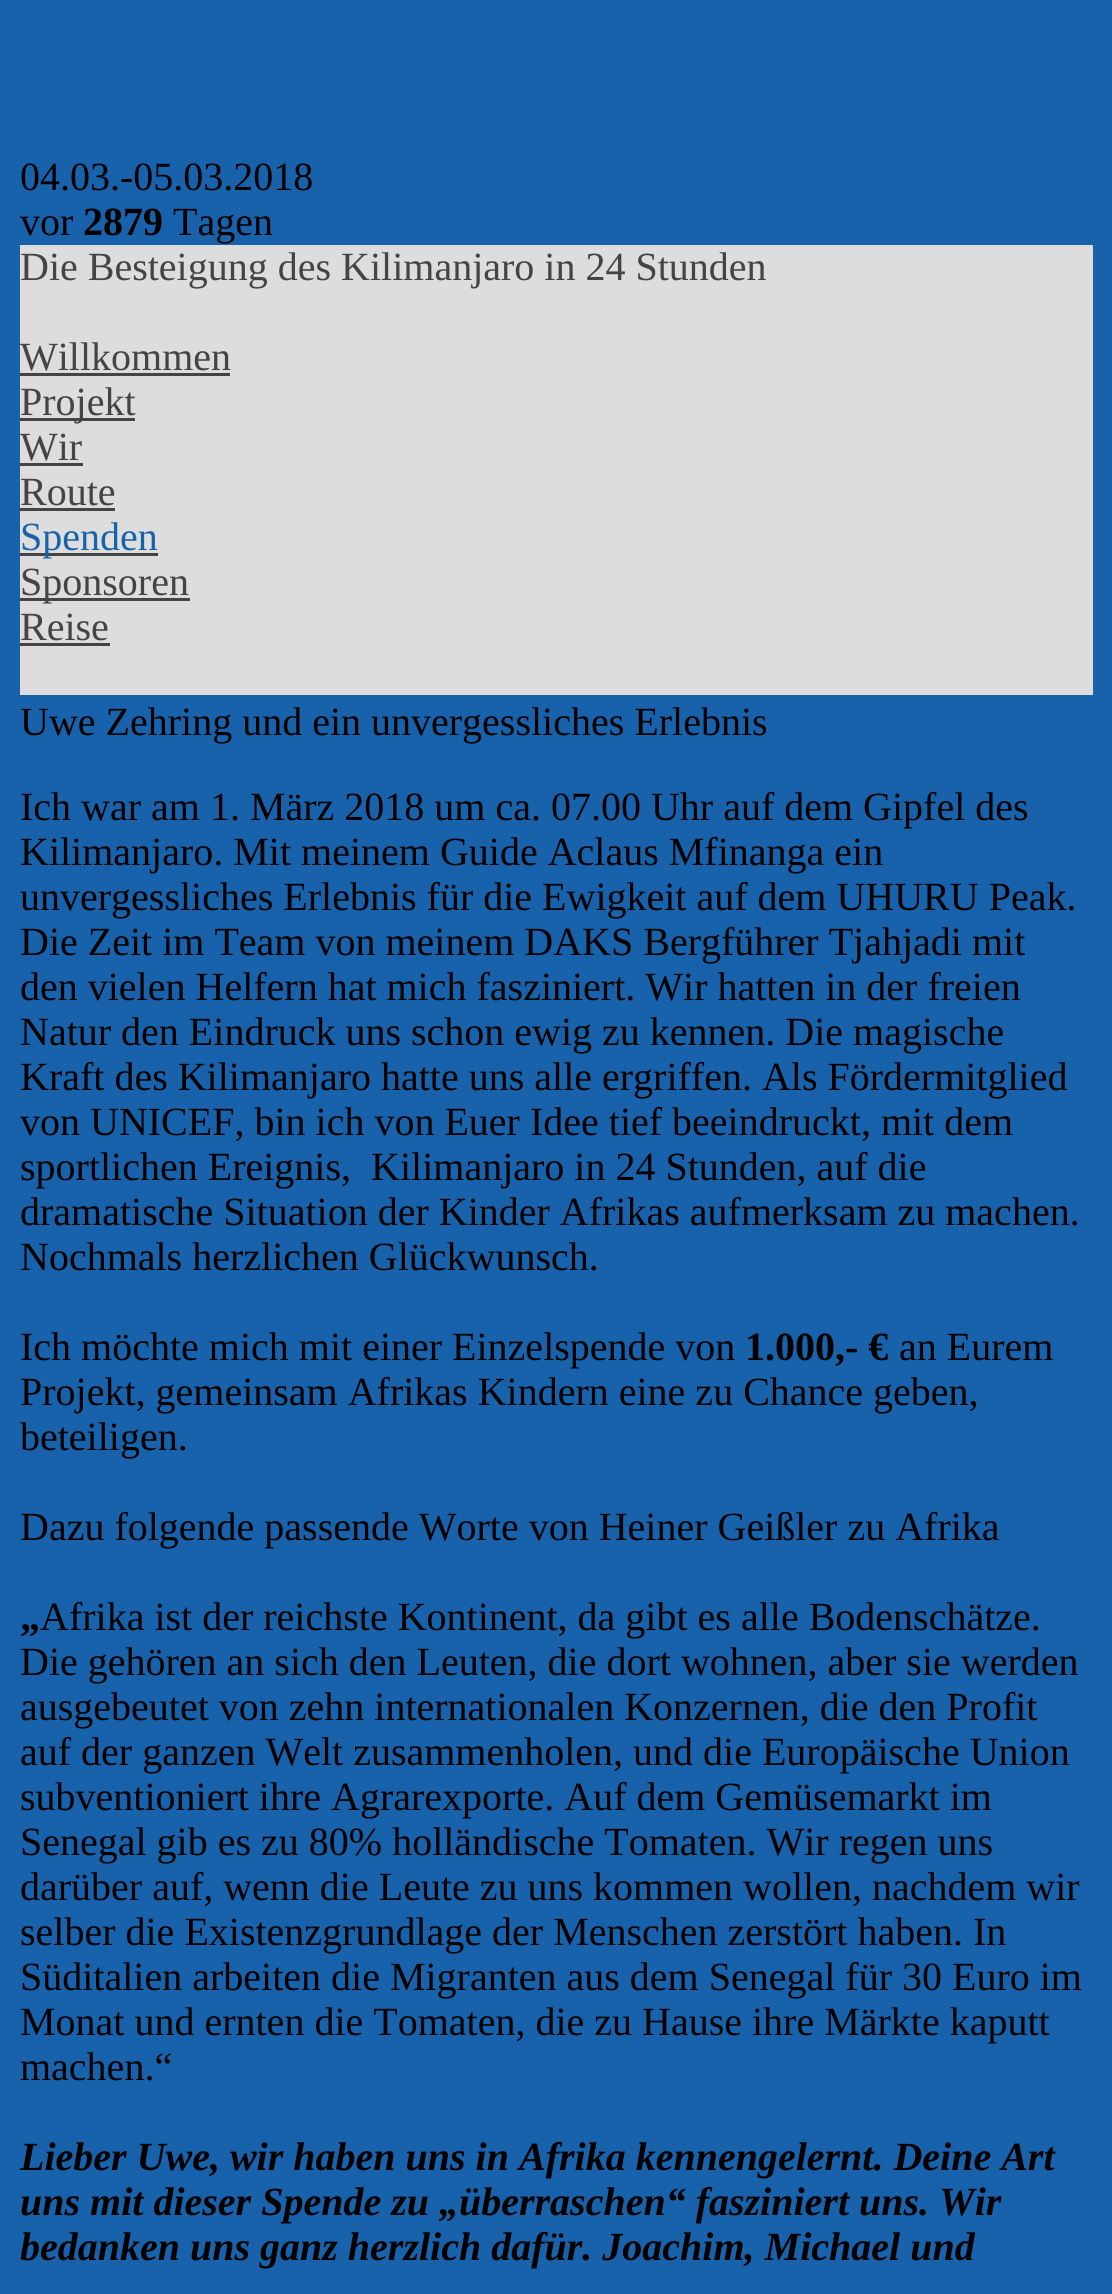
import math
import cairo

surface = cairo.ImageSurface(cairo.Format.RGB24, 1112, 2294)
ctx = cairo.Context(surface)
options = cairo.FontOptions()
options.set_hint_metrics(cairo.HintMetrics.OFF)
options.set_hint_style(cairo.HintStyle.NONE)
ctx.set_font_options(options)
ctx.set_miter_limit(4)


def ink(r, g, b):
    ctx.set_source_rgb(r / 255, g / 255, b / 255)


def write(x, y, s, family, size, color, bold=False, italic=False):
    ctx.select_font_face(family, cairo.FontSlant.ITALIC if italic else cairo.FontSlant.NORMAL, cairo.FontWeight.BOLD if bold else cairo.FontWeight.NORMAL)
    ctx.set_font_size(size)
    ink(*color)
    ctx.move_to(x, y)
    ctx.show_text(s)


def block(x, y, w, h, *color):
    ink(*color)
    ctx.rectangle(x, y, w, h)
    ctx.fill()


s1 = dict(family="Liberation Serif", size=40, color=(0, 0, 0))
s2 = dict(family="Liberation Serif", size=40, color=(0, 0, 0), bold=True)
s3 = dict(family="Liberation Serif", size=40, color=(68, 68, 68))
s4 = dict(family="Liberation Serif", size=40, color=(24, 98, 171))
s5 = dict(family="Liberation Serif", size=40, color=(0, 0, 0), bold=True, italic=True)

ink(24, 98, 171)
ctx.paint()
write(20, 190, "04.03.-05.03.2018", **s1)
write(20, 235, "vor", **s1)
write(83, 235, "2879", **s2)
write(173, 235, "Tagen", **s1)
block(20, 245, 1073, 450, 221, 221, 221)
write(20, 280, "Die Besteigung des Kilimanjaro in 24 Stunden", **s3)
write(20, 370, "Willkommen", **s3)
block(20, 373, 210, 3, 68, 68, 68)
block(20, 418, 115, 3, 68, 68, 68)
write(20, 415, "Projekt", **s3)
write(20, 460, "Wir", **s3)
block(20, 463, 63, 3, 68, 68, 68)
write(20, 505, "Route", **s3)
block(20, 508, 95, 3, 68, 68, 68)
block(20, 553, 138, 3, 68, 68, 68)
write(20, 550, "Spenden", **s4)
block(20, 598, 170, 3, 68, 68, 68)
write(20, 595, "Sponsoren", **s3)
write(20, 640, "Reise", **s3)
block(20, 643, 90, 3, 68, 68, 68)
write(20, 735, "Uwe Zehring und ein unvergessliches Erlebnis", **s1)
write(20, 820, "Ich war am 1. März 2018 um ca. 07.00 Uhr auf dem Gipfel des", **s1)
write(20, 865, "Kilimanjaro. Mit meinem Guide Aclaus Mfinanga ein", **s1)
write(20, 910, "unvergessliches Erlebnis für die Ewigkeit auf dem UHURU Peak.", **s1)
write(20, 955, "Die Zeit im Team von meinem DAKS Bergführer Tjahjadi mit", **s1)
write(20, 1000, "den vielen Helfern hat mich fasziniert. Wir hatten in der freien", **s1)
write(20, 1045, "Natur den Eindruck uns schon ewig zu kennen. Die magische", **s1)
write(20, 1090, "Kraft des Kilimanjaro hatte uns alle ergriffen. Als Fördermitglied", **s1)
write(20, 1135, "von UNICEF, bin ich von Euer Idee tief beeindruckt, mit dem", **s1)
write(20, 1180, "sportlichen Ereignis,  Kilimanjaro in 24 Stunden, auf die", **s1)
write(20, 1225, "dramatische Situation der Kinder Afrikas aufmerksam zu machen.", **s1)
write(20, 1270, "Nochmals herzlichen Glückwunsch.", **s1)
write(20, 1360, "Ich möchte mich mit einer Einzelspende von", **s1)
write(745, 1360, "1.000,- €", **s2)
write(899, 1360, "an Eurem", **s1)
write(20, 1405, "Projekt, gemeinsam Afrikas Kindern eine zu Chance geben,", **s1)
write(20, 1450, "beteiligen.", **s1)
write(20, 1540, "Dazu folgende passende Worte von Heiner Geißler zu Afrika", **s1)
write(20, 1630, "„", **s2)
write(40, 1630, "Afrika ist der reichste Kontinent, da gibt es alle Bodenschätze.", **s1)
write(20, 1675, "Die gehören an sich den Leuten, die dort wohnen, aber sie werden", **s1)
write(20, 1720, "ausgebeutet von zehn internationalen Konzernen, die den Profit", **s1)
write(20, 1765, "auf der ganzen Welt zusammenholen, und die Europäische Union", **s1)
write(20, 1810, "subventioniert ihre Agrarexporte. Auf dem Gemüsemarkt im", **s1)
write(20, 1855, "Senegal gib es zu 80% holländische Tomaten. Wir regen uns", **s1)
write(20, 1900, "darüber auf, wenn die Leute zu uns kommen wollen, nachdem wir", **s1)
write(20, 1945, "selber die Existenzgrundlage der Menschen zerstört haben. In", **s1)
write(20, 1990, "Süditalien arbeiten die Migranten aus dem Senegal für 30 Euro im", **s1)
write(20, 2035, "Monat und ernten die Tomaten, die zu Hause ihre Märkte kaputt", **s1)
write(20, 2080, "machen.“", **s1)
write(20, 2170, "Lieber Uwe, wir haben uns in Afrika kennengelernt. Deine Art", **s5)
write(20, 2215, "uns mit dieser Spende zu „überraschen“ fasziniert uns. Wir", **s5)
write(20, 2260, "bedanken uns ganz herzlich dafür. Joachim, Michael und", **s5)
surface.write_to_png("screenshot.png")
